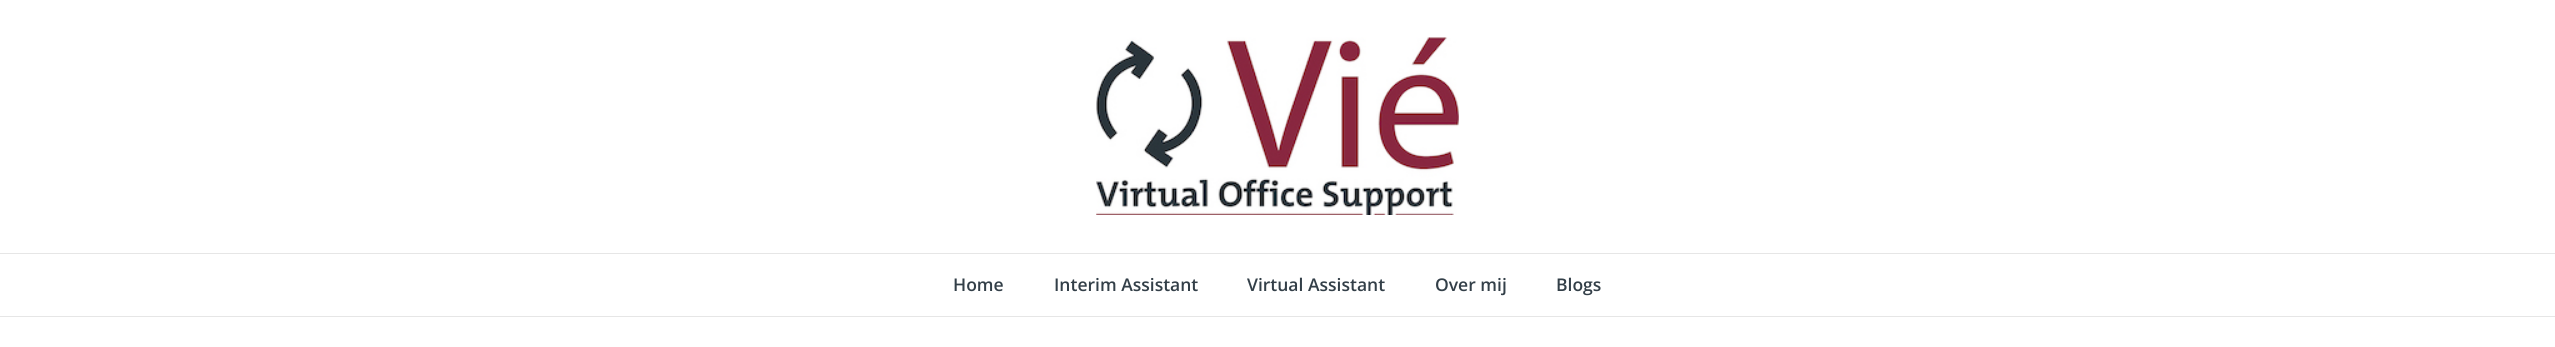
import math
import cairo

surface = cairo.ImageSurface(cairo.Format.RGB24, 2555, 347)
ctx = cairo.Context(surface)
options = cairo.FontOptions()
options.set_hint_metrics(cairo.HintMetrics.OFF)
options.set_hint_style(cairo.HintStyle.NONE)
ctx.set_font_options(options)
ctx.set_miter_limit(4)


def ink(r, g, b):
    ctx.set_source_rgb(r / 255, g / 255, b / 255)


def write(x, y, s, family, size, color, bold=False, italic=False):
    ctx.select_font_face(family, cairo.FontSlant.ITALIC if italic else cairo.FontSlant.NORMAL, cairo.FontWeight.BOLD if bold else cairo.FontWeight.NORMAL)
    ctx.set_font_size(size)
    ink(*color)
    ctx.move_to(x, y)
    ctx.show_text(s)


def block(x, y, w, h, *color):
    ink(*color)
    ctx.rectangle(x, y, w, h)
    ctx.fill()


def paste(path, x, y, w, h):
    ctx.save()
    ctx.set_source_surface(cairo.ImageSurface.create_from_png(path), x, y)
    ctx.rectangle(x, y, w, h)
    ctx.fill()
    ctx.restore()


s1 = dict(family="Open Sans SemiBold", size=17.5, color=(51, 63, 72))

ink(255, 255, 255)
ctx.paint()
paste("pic1.png", 1096, 37, 363, 178)
block(0, 253, 2555, 1, 230, 230, 230)
block(0, 316, 2555, 1, 230, 230, 230)
write(953, 291, "Home", **s1)
write(1054, 291, "Interim Assistant", **s1)
write(1247, 291, "Virtual Assistant", **s1)
write(1435, 291, "Over mij", **s1)
write(1556, 291, "Blogs", **s1)
surface.write_to_png("screenshot.png")
